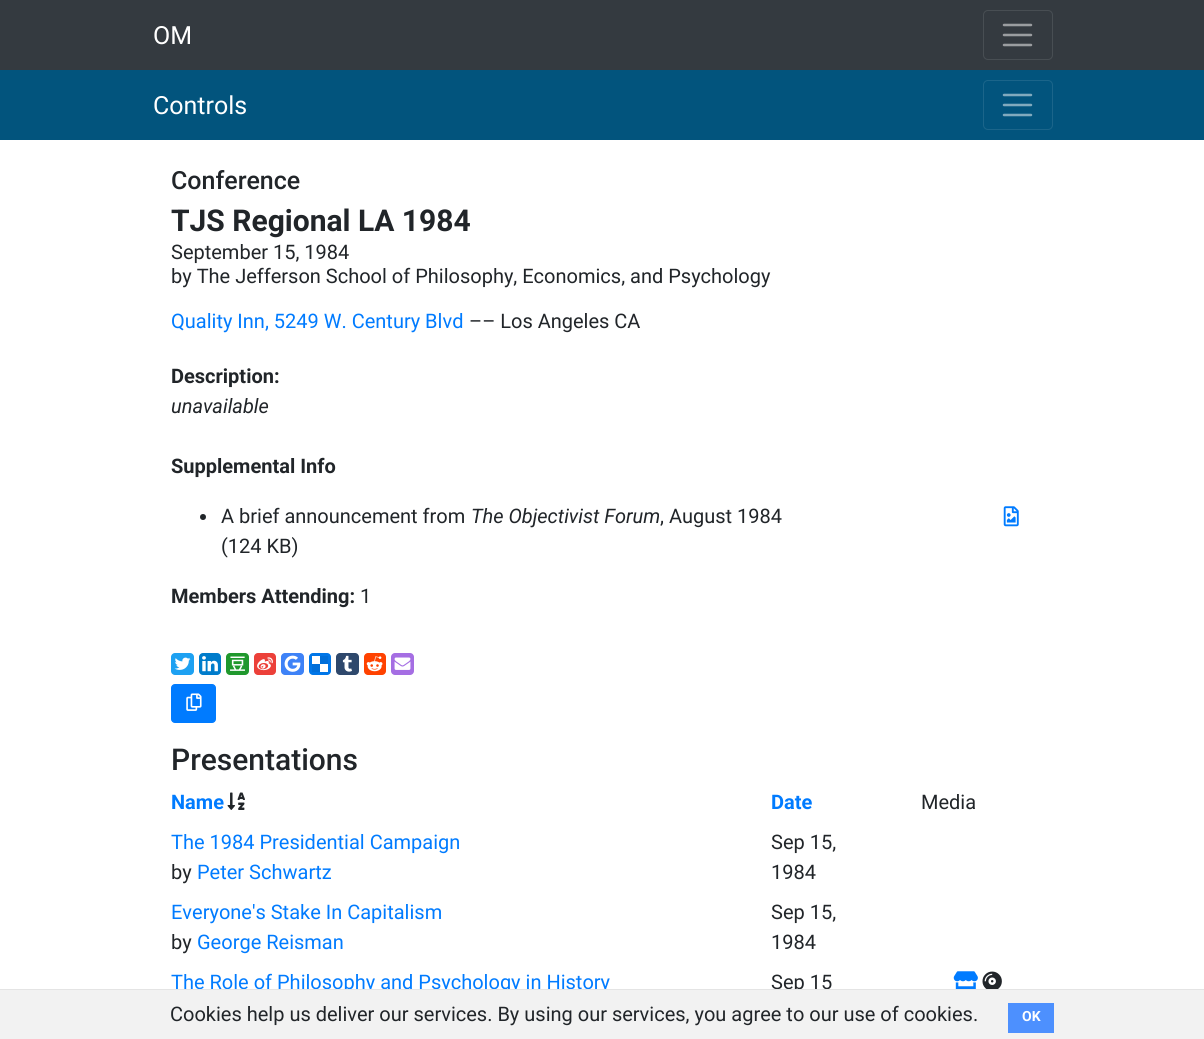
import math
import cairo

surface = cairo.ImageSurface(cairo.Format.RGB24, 1204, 1039)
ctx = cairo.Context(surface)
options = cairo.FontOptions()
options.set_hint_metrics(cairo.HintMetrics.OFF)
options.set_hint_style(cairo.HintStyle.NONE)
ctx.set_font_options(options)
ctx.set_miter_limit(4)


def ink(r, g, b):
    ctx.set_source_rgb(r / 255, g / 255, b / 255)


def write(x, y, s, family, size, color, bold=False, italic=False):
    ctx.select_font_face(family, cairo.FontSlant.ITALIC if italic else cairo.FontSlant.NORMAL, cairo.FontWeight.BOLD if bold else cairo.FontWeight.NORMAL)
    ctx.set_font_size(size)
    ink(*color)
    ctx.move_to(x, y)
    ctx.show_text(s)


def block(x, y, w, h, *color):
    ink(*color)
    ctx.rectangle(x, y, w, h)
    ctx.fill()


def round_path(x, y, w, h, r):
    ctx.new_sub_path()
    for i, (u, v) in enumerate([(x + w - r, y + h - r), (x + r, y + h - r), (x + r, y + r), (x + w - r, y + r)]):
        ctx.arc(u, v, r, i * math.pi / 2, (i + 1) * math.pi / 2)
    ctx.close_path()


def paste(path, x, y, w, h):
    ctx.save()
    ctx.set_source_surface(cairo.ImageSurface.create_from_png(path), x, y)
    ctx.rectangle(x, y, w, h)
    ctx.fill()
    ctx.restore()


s1 = dict(family="Roboto", size=25, color=(255, 255, 255))
s2 = dict(family="Roboto Medium", size=25, color=(33, 37, 41))
s3 = dict(family="Roboto", size=30, color=(33, 37, 41), bold=True)
s4 = dict(family="Roboto", size=20, color=(33, 37, 41))
s5 = dict(family="Roboto", size=20, color=(0, 123, 255))
s6 = dict(family="Roboto", size=20, color=(33, 37, 41), bold=True)
s7 = dict(family="Roboto", size=20, color=(33, 37, 41), italic=True)
s8 = dict(family="Roboto Medium", size=30, color=(33, 37, 41))
s9 = dict(family="Roboto", size=20, color=(0, 123, 255), bold=True)
s10 = dict(family="Roboto", size=14, color=(255, 255, 255), bold=True)

ink(255, 255, 255)
ctx.paint()
block(0, 0, 1204, 70, 52, 58, 64)
write(153, 44, "OM", **s1)
round_path(983.5, 10.5, 69, 49, 4.5)
ink(72, 78, 83)
ctx.set_line_width(1)
ctx.stroke()
ctx.new_path()
ctx.move_to(1004, 25)
ctx.line_to(1031, 25)
ctx.move_to(1004, 35)
ctx.line_to(1031, 35)
ctx.move_to(1004, 45)
ctx.line_to(1031, 45)
ink(154, 157, 160)
ctx.set_line_width(2.5)
ctx.set_line_cap(cairo.LineCap.ROUND)
ctx.stroke()
block(0, 70, 1204, 70, 2, 84, 125)
write(153, 114, "Controls", **s1)
round_path(983.5, 80.5, 69, 49, 4.5)
ink(27, 101, 138)
ctx.set_line_width(1)
ctx.set_line_cap(cairo.LineCap.BUTT)
ctx.stroke()
ctx.new_path()
ctx.move_to(1004, 95)
ctx.line_to(1031, 95)
ctx.move_to(1004, 105)
ctx.line_to(1031, 105)
ctx.move_to(1004, 115)
ctx.line_to(1031, 115)
ink(129, 170, 190)
ctx.set_line_width(2.5)
ctx.set_line_cap(cairo.LineCap.ROUND)
ctx.stroke()
write(171, 189, "Conference", **s2)
write(171, 231, "TJS Regional LA 1984", **s3)
write(171, 259, "September 15, 1984", **s4)
write(171, 283, "by The Jefferson School of Philosophy, Economics, and Psychology", **s4)
write(171, 328, "Quality Inn, 5249 W. Century Blvd", **s5)
write(469, 328, "–– Los Angeles CA", **s4)
write(171, 383, "Description:", **s6)
write(171, 413, "unavailable", **s7)
write(171, 473, "Supplemental Info", **s6)
ctx.new_path()
ctx.arc(203, 517, 3, 0, 2 * math.pi)
ctx.fill()
write(221, 523, "A brief announcement from", **s4)
write(471, 523, "The Objectivist Forum", **s7)
write(660, 523, ", August 1984", **s4)
write(221, 553, "(124 KB)", **s4)
paste("pic1.png", 1003, 506, 16, 21)
write(171, 603, "Members Attending:", **s6)
write(360, 603, "1", **s4)
paste("pic2.png", 171, 653, 23, 22)
paste("pic3.png", 199, 653, 22, 22)
paste("pic4.png", 226, 653, 23, 22)
paste("pic5.png", 254, 653, 22, 22)
paste("pic6.png", 281, 653, 23, 22)
paste("pic7.png", 309, 653, 22, 22)
paste("pic8.png", 336, 653, 23, 22)
paste("pic9.png", 364, 653, 22, 22)
paste("pic10.png", 391, 653, 23, 22)
ink(0, 123, 255)
round_path(171.5, 684.5, 44, 38, 3.5)
ctx.fill_preserve()
ctx.set_line_width(1)
ctx.set_line_cap(cairo.LineCap.BUTT)
ctx.stroke()
paste("pic11.png", 186, 693, 16, 18)
write(171, 770, "Presentations", **s8)
write(171, 809, "Name", **s9)
paste("pic12.png", 227, 792, 18, 18)
write(771, 809, "Date", **s9)
write(921, 809, "Media", **s4)
write(171, 849, "The 1984 Presidential Campaign", **s5)
write(171, 879, "by", **s4)
write(197, 879, "Peter Schwartz", **s5)
write(771, 849, "Sep 15,", **s4)
write(771, 879, "1984", **s4)
write(171, 919, "Everyone's Stake In Capitalism", **s5)
write(171, 949, "by", **s4)
write(197, 949, "George Reisman", **s5)
write(771, 919, "Sep 15,", **s4)
write(771, 949, "1984", **s4)
write(171, 989, "The Role of Philosophy and Psychology in History", **s5)
write(771, 989, "Sep 15", **s4)
paste("pic13.png", 953, 971, 25, 18)
paste("pic14.png", 982, 971, 20, 18)
block(0, 990, 1204, 49, 242, 242, 242)
block(0, 989, 1204, 1, 228, 228, 228)
write(170, 1021, "Cookies help us deliver our services. By using our services, you agree to our use of cookies.", **s4)
block(1008, 1003, 46, 30, 77, 144, 254)
write(1022, 1021, "OK", **s10)
surface.write_to_png("screenshot.png")
